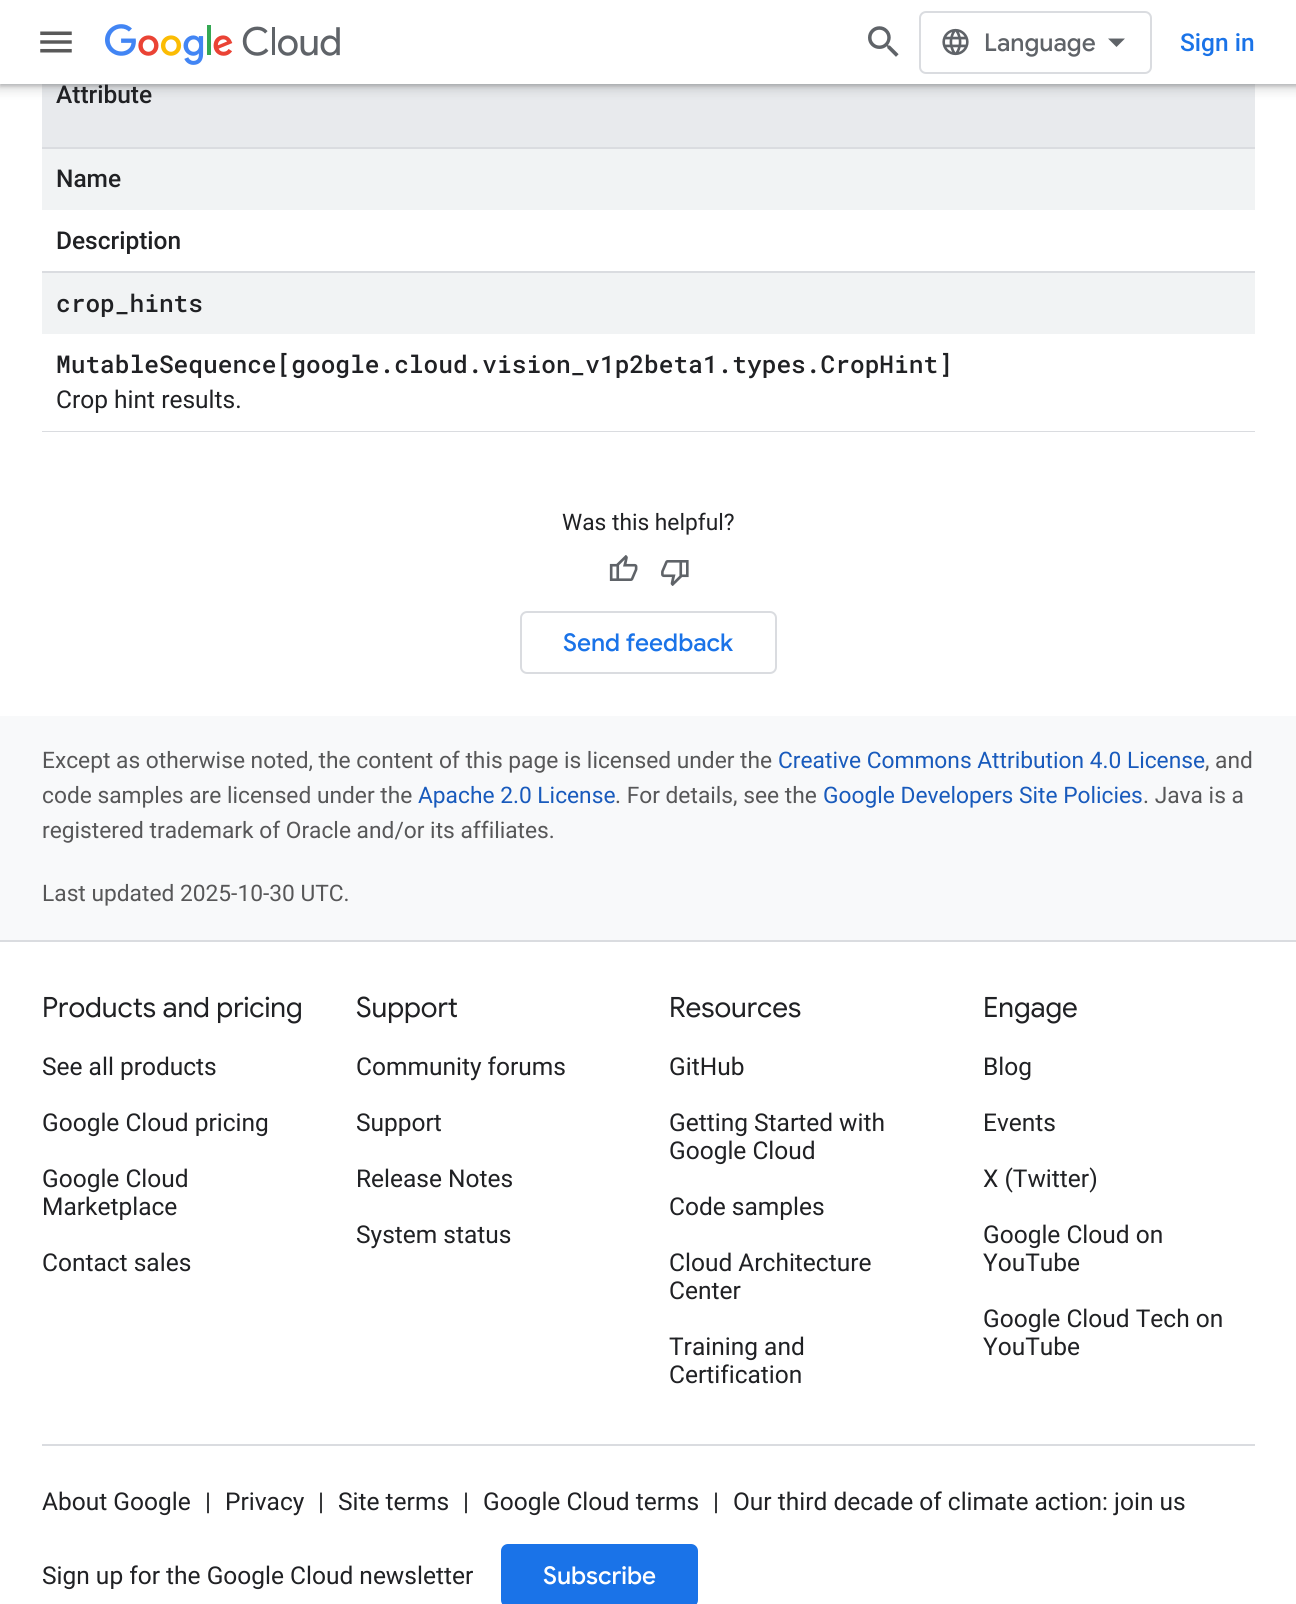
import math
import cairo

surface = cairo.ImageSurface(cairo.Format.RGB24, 1296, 1604)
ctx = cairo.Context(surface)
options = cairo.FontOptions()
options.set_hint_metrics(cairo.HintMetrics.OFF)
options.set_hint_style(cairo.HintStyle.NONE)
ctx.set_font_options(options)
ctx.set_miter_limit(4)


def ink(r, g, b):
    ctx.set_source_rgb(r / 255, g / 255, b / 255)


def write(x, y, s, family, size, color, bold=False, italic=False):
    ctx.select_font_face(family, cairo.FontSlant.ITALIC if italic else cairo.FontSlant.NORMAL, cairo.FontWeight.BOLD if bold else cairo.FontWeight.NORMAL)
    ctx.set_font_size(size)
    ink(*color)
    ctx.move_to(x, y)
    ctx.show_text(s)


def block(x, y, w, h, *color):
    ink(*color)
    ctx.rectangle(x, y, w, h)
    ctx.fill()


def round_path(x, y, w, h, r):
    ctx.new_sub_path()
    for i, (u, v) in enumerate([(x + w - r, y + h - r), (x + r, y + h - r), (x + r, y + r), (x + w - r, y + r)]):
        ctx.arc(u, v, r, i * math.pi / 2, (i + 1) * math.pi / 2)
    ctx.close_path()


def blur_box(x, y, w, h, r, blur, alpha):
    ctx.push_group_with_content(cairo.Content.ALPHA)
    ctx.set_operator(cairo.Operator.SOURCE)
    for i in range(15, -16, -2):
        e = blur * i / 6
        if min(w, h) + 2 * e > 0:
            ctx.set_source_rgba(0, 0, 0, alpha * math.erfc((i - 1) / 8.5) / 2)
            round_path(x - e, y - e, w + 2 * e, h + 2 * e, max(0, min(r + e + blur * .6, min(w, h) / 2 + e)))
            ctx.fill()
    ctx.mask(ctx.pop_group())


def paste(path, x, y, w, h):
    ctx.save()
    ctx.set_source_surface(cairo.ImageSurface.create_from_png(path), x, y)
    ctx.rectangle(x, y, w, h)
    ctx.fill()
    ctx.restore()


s1 = dict(family="Google Sans Medium", size=24.5, color=(95, 99, 104))
s2 = dict(family="Roboto Medium", size=24.5, color=(26, 115, 232))
s3 = dict(family="Roboto Medium", size=24.5, color=(32, 33, 36))
s4 = dict(family="Roboto Mono Medium", size=24.5, color=(32, 33, 36))
s5 = dict(family="Roboto", size=24.5, color=(32, 33, 36))
s6 = dict(family="Roboto", size=22.75, color=(32, 33, 36))
s7 = dict(family="Google Sans Medium", size=24.5, color=(26, 115, 232))
s8 = dict(family="Roboto", size=22.75, color=(87, 87, 88))
s9 = dict(family="Roboto", size=22.75, color=(24, 90, 188))
s10 = dict(family="Google Sans", size=28, color=(32, 33, 36))
s11 = dict(family="Google Sans Medium", size=24.5, color=(255, 255, 255))

ink(248, 249, 250)
ctx.paint()
block(0, 84, 1296, 632, 255, 255, 255)
block(42, 84, 1213, 63, 232, 234, 237)
ink(60, 64, 67)
blur_box(-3, -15, 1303, 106, 0, 5, 0.15)
blur_box(0, -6, 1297, 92, 0, 2, 0.3)
block(0, 0, 1296, 84, 255, 255, 255)
paste("pic1.png", 40, 31, 32, 22)
paste("pic2.png", 105, 24, 235, 41)
paste("pic3.png", 868, 26, 31, 31)
round_path(920, 12, 231, 61, 6)
ink(218, 220, 224)
ctx.stroke()
paste("pic4.png", 942, 28, 27, 28)
write(984, 51, "Language", **s1)
ctx.new_path()
ctx.move_to(1116.5, 47)
ctx.line_to(1108, 38.5)
ctx.line_to(1125, 38.5)
ctx.close_path()
ctx.fill()
write(1180, 51, "Sign in", **s2)
block(42, 147, 1213, 2, 218, 220, 224)
write(56, 103, "Attribute", **s3)
block(42, 271, 1213, 2, 218, 220, 224)
block(42, 149, 1213, 61, 241, 243, 244)
write(56, 187, "Name", **s3)
write(56, 249, "Description", **s3)
block(42, 431, 1213, 1, 218, 220, 224)
block(42, 273, 1213, 61, 241, 243, 244)
write(56, 312, "crop_hints", **s4)
write(56, 373, "MutableSequence[google.cloud.vision_v1p2beta1.types.CropHint]", **s4)
write(56, 408, "Crop hint results.", **s5)
write(562, 530, "Was this helpful?", **s6)
paste("pic5.png", 609, 555, 29, 26)
paste("pic6.png", 661, 560, 28, 26)
round_path(521, 612, 255, 61, 6)
ink(218, 220, 224)
ctx.stroke()
write(563, 651, "Send feedback", **s7)
write(42, 768, "Except as otherwise noted, the content of this page is licensed under the", **s8)
write(778, 768, "Creative Commons Attribution 4.0 License", **s9)
write(1205, 768, ", and", **s8)
write(42, 803, "code samples are licensed under the", **s8)
write(418, 803, "Apache 2.0 License", **s9)
write(615, 803, ". For details, see the", **s8)
write(823, 803, "Google Developers Site Policies", **s9)
write(1143, 803, ". Java is a", **s8)
write(42, 838, "registered trademark of Oracle and/or its affiliates.", **s8)
write(42, 901, "Last updated 2025-10-30 UTC.", **s8)
block(0, 940, 1296, 2, 218, 220, 224)
block(0, 942, 1296, 662, 255, 255, 255)
block(42, 1444, 1213, 2, 218, 220, 224)
write(42, 1017, "Products and pricing", **s10)
write(42, 1075, "See all products", **s5)
write(42, 1131, "Google Cloud pricing", **s5)
write(42, 1187, "Google Cloud", **s5)
write(42, 1215, "Marketplace", **s5)
write(42, 1271, "Contact sales", **s5)
write(356, 1017, "Support", **s10)
write(356, 1075, "Community forums", **s5)
write(356, 1131, "Support", **s5)
write(356, 1187, "Release Notes", **s5)
write(356, 1243, "System status", **s5)
write(669, 1017, "Resources", **s10)
write(669, 1075, "GitHub", **s5)
write(669, 1131, "Getting Started with", **s5)
write(669, 1159, "Google Cloud", **s5)
write(669, 1215, "Code samples", **s5)
write(669, 1271, "Cloud Architecture", **s5)
write(669, 1299, "Center", **s5)
write(669, 1355, "Training and", **s5)
write(669, 1383, "Certification", **s5)
write(983, 1017, "Engage", **s10)
write(983, 1075, "Blog", **s5)
write(983, 1131, "Events", **s5)
write(983, 1187, "X (Twitter)", **s5)
write(983, 1243, "Google Cloud on", **s5)
write(983, 1271, "YouTube", **s5)
write(983, 1327, "Google Cloud Tech on", **s5)
write(983, 1355, "YouTube", **s5)
write(42, 1510, "About Google", **s5)
write(205, 1510, "|", **s5)
write(225, 1510, "Privacy", **s5)
write(318, 1510, "|", **s5)
write(338, 1510, "Site terms", **s5)
write(463, 1510, "|", **s5)
write(483, 1510, "Google Cloud terms", **s5)
write(713, 1510, "|", **s5)
write(733, 1510, "Our third decade of climate action: join us", **s5)
write(42, 1584, "Sign up for the Google Cloud newsletter", **s5)
ink(26, 115, 232)
round_path(501, 1544, 197, 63, 7)
ctx.fill()
write(543, 1584, "Subscribe", **s11)
surface.write_to_png("screenshot.png")
